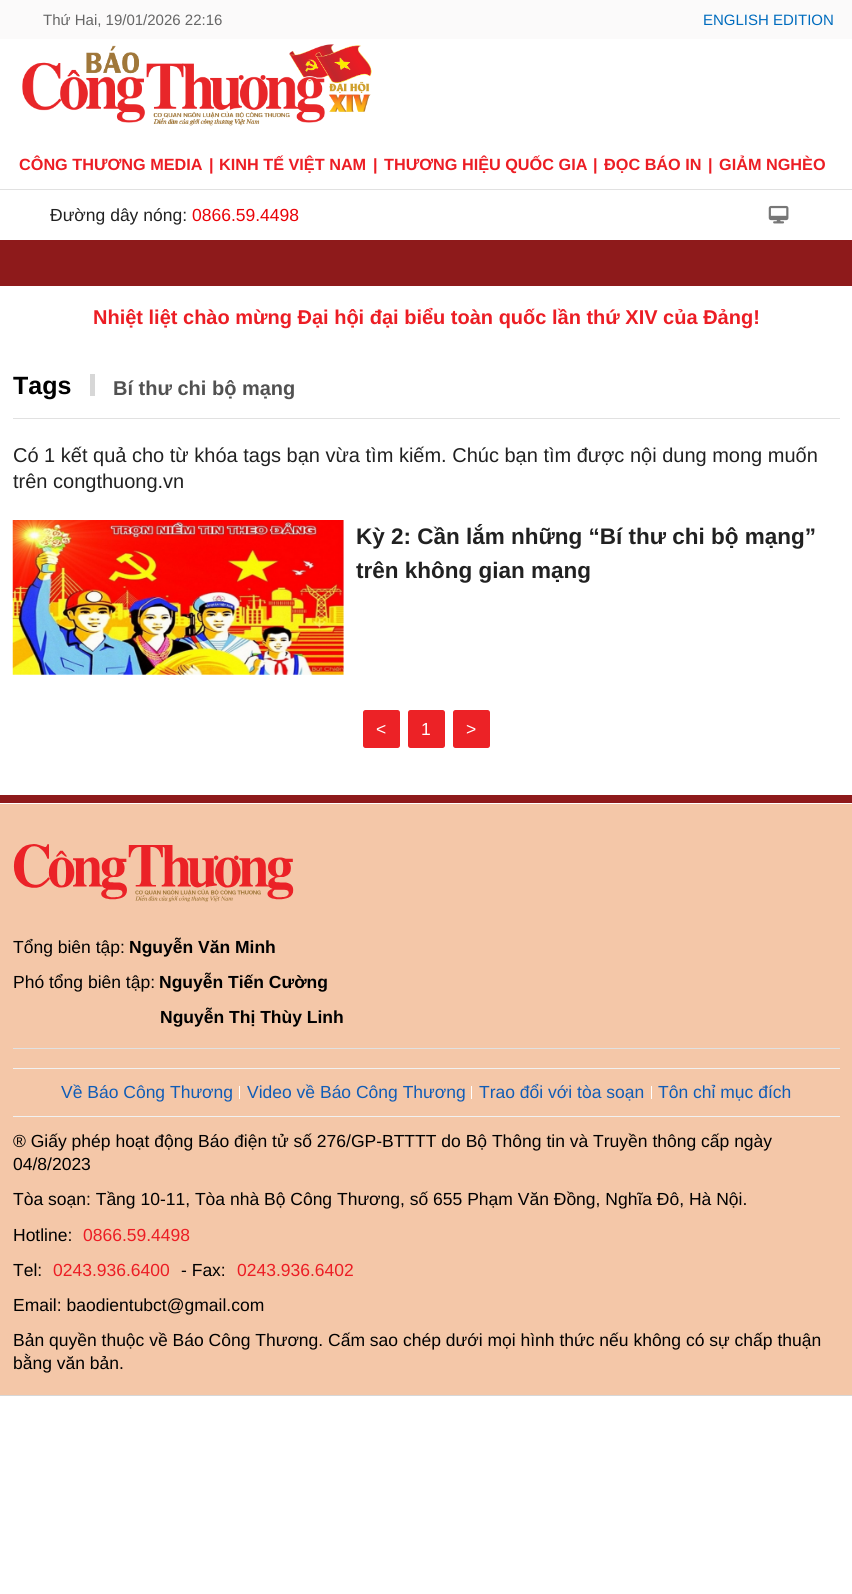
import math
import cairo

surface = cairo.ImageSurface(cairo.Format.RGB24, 852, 1594)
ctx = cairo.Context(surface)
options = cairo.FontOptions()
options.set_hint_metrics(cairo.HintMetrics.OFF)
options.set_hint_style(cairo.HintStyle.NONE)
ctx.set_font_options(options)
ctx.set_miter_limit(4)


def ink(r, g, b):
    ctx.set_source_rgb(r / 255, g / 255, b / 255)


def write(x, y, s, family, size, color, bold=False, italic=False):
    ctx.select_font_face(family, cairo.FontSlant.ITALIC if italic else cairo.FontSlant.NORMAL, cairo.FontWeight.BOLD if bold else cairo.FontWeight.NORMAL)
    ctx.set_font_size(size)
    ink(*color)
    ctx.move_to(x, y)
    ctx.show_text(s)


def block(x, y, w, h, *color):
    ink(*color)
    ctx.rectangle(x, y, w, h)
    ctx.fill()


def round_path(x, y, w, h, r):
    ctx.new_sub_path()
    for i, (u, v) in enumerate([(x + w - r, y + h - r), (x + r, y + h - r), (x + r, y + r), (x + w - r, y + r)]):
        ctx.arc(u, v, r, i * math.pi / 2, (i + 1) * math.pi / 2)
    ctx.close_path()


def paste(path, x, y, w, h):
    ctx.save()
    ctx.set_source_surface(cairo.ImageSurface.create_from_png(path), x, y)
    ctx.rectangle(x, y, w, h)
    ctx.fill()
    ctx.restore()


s1 = dict(family="Liberation Sans", size=15, color=(102, 102, 102))
s2 = dict(family="Liberation Sans", size=15, color=(0, 108, 190))
s3 = dict(family="Liberation Sans", size=16.25, color=(236, 29, 36), bold=True)
s4 = dict(family="Liberation Sans", size=17.5, color=(33, 33, 33))
s5 = dict(family="Liberation Sans", size=17.5, color=(233, 2, 7))
s6 = dict(family="Liberation Sans", size=20, color=(236, 29, 36), bold=True)
s7 = dict(family="Liberation Sans", size=25, color=(0, 0, 0), bold=True)
s8 = dict(family="Liberation Sans", size=20, color=(81, 81, 81), bold=True)
s9 = dict(family="Liberation Sans", size=20, color=(33, 33, 33))
s10 = dict(family="Liberation Sans", size=22.5, color=(33, 33, 33), bold=True)
s11 = dict(family="Liberation Sans", size=17.5, color=(255, 255, 255))
s12 = dict(family="Liberation Sans", size=17.5, color=(0, 0, 0))
s13 = dict(family="Liberation Sans", size=17.5, color=(0, 0, 0), bold=True)
s14 = dict(family="Liberation Sans", size=17.5, color=(16, 92, 182))
s15 = dict(family="Liberation Sans", size=17.5, color=(236, 29, 36))

ink(255, 255, 255)
ctx.paint()
block(0, 0, 852, 39, 251, 250, 250)
write(43, 25, "Thứ Hai, 19/01/2026 22:16", **s1)
write(703, 25, "ENGLISH EDITION", **s2)
paste("pic1.png", 22, 44, 350, 82)
write(19, 170, "CÔNG THƯƠNG MEDIA", **s3)
write(209, 170, "|", **s3)
write(219, 170, "KINH TẾ VIỆT NAM", **s3)
write(373, 170, "|", **s3)
write(384, 170, "THƯƠNG HIỆU QUỐC GIA", **s3)
write(593, 170, "|", **s3)
write(604, 170, "ĐỌC BÁO IN", **s3)
write(708, 170, "|", **s3)
write(719, 170, "GIẢM NGHÈO", **s3)
block(0, 189, 852, 1, 225, 225, 225)
write(50, 221, "Đường dây nóng:", **s4)
write(192, 221, "0866.59.4498", **s5)
paste("pic2.png", 768, 205, 21, 19)
block(0, 240, 852, 46, 142, 26, 27)
write(93, 324, "Nhiệt liệt chào mừng Đại hội đại biểu toàn quốc lần thứ XIV của Đảng!", **s6)
block(13, 418, 827, 1, 225, 225, 225)
ctx.save()
ctx.rectangle(13, 369, 827, 35)
ctx.clip()
write(13, 394, "Tags", **s7)
ctx.restore()
block(90, 374, 5, 22, 215, 215, 215)
write(113, 395, "Bí thư chi bộ mạng", **s8)
write(13, 462, "Có 1 kết quả cho từ khóa tags bạn vừa tìm kiếm. Chúc bạn tìm được nội dung mong muốn", **s9)
write(13, 488, "trên congthuong.vn", **s9)
paste("pic3.png", 12, 520, 332, 155)
write(356, 544, "Kỳ 2: Cần lắm những “Bí thư chi bộ mạng”", **s10)
write(356, 578, "trên không gian mạng", **s10)
ink(236, 34, 38)
round_path(363, 710, 37, 38, 2.5)
ctx.fill()
write(376, 735, "<", **s11)
ink(236, 34, 38)
round_path(408, 710, 37, 38, 2.5)
ctx.fill()
write(421, 735, "1", **s11)
ink(236, 34, 38)
round_path(453, 710, 37, 38, 2.5)
ctx.fill()
write(466, 735, ">", **s11)
block(0, 804, 852, 591, 244, 199, 168)
block(0, 795, 852, 8, 142, 26, 27)
block(0, 1395, 852, 1, 215, 215, 215)
paste("pic4.png", 13, 844, 281, 58)
write(13, 953, "Tổng biên tập:", **s12)
write(129, 953, "Nguyễn Văn Minh", **s13)
write(13, 988, "Phó tổng biên tập:", **s12)
write(159, 988, "Nguyễn Tiến Cường", **s13)
write(160, 1023, "Nguyễn Thị Thùy Linh", **s13)
block(13, 1048, 827, 1, 225, 225, 225)
block(13, 1068, 827, 1, 241, 241, 241)
block(13, 1116, 827, 1, 241, 241, 241)
write(61, 1098, "Về Báo Công Thương", **s14)
block(239, 1086, 1, 13, 255, 255, 255)
write(247, 1098, "Video về Báo Công Thương", **s14)
block(471, 1086, 1, 13, 255, 255, 255)
write(479, 1098, "Trao đổi với tòa soạn", **s14)
block(651, 1086, 1, 13, 255, 255, 255)
write(658, 1098, "Tôn chỉ mục đích", **s14)
write(13, 1147, "® Giấy phép hoạt động Báo điện tử số 276/GP-BTTTT do Bộ Thông tin và Truyền thông cấp ngày", **s12)
write(13, 1170, "04/8/2023", **s12)
write(13, 1205, "Tòa soạn: Tầng 10-11, Tòa nhà Bộ Công Thương, số 655 Phạm Văn Đồng, Nghĩa Đô, Hà Nội.", **s12)
write(13, 1241, "Hotline:", **s12)
write(83, 1241, "0866.59.4498", **s15)
write(13, 1276, "Tel:", **s12)
write(53, 1276, "0243.936.6400", **s15)
write(181, 1276, "- Fax:", **s12)
write(237, 1276, "0243.936.6402", **s15)
write(13, 1311, "Email: baodientubct@gmail.com", **s12)
write(13, 1346, "Bản quyền thuộc về Báo Công Thương. Cấm sao chép dưới mọi hình thức nếu không có sự chấp thuận", **s12)
write(13, 1369, "bằng văn bản.", **s12)
surface.write_to_png("screenshot.png")
